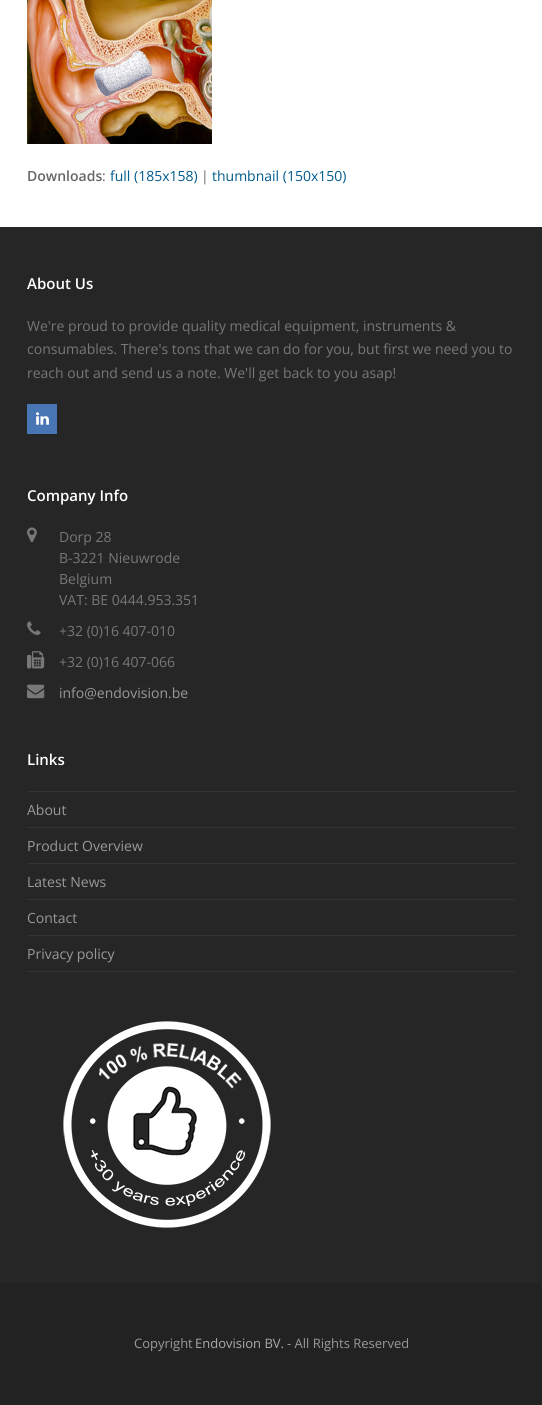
import math
import cairo

surface = cairo.ImageSurface(cairo.Format.RGB24, 542, 1405)
ctx = cairo.Context(surface)
options = cairo.FontOptions()
options.set_hint_metrics(cairo.HintMetrics.OFF)
options.set_hint_style(cairo.HintStyle.NONE)
ctx.set_font_options(options)
ctx.set_miter_limit(4)


def ink(r, g, b):
    ctx.set_source_rgb(r / 255, g / 255, b / 255)


def write(x, y, s, family, size, color, bold=False, italic=False):
    ctx.select_font_face(family, cairo.FontSlant.ITALIC if italic else cairo.FontSlant.NORMAL, cairo.FontWeight.BOLD if bold else cairo.FontWeight.NORMAL)
    ctx.set_font_size(size)
    ink(*color)
    ctx.move_to(x, y)
    ctx.show_text(s)


def block(x, y, w, h, *color):
    ink(*color)
    ctx.rectangle(x, y, w, h)
    ctx.fill()


def paste(path, x, y, w, h):
    ctx.save()
    ctx.set_source_surface(cairo.ImageSurface.create_from_png(path), x, y)
    ctx.rectangle(x, y, w, h)
    ctx.fill()
    ctx.restore()


s1 = dict(family="Open Sans SemiBold", size=14, color=(102, 102, 102))
s2 = dict(family="Open Sans", size=14, color=(102, 102, 102))
s3 = dict(family="Open Sans", size=14, color=(0, 90, 141))
s4 = dict(family="Open Sans SemiBold", size=15, color=(255, 255, 255))
s5 = dict(family="Open Sans", size=14, color=(119, 119, 119))
s6 = dict(family="Open Sans", size=14, color=(153, 153, 153))
s7 = dict(family="Open Sans", size=13, color=(153, 153, 153))
s8 = dict(family="Open Sans", size=13, color=(170, 170, 170))

ink(255, 255, 255)
ctx.paint()
paste("pic1.png", 27, 0, 185, 144)
write(27, 181, "Downloads", **s1)
write(102, 181, ":", **s2)
write(110, 181, "full (185x158)", **s3)
write(201, 181, "|", **s2)
write(212, 181, "thumbnail (150x150)", **s3)
block(0, 227, 542, 1056, 38, 38, 38)
write(27, 289, "About Us", **s4)
write(27, 331, "We're proud to provide quality medical equipment, instruments &", **s5)
write(27, 354, "consumables. There's tons that we can do for you, but first we need you to", **s5)
write(27, 378, "reach out and send us a note. We'll get back to you asap!", **s5)
block(27, 404, 30, 30, 72, 117, 180)
paste("pic2.png", 36, 412, 13, 13)
write(27, 501, "Company Info", **s4)
paste("pic3.png", 27, 527, 10, 16)
write(59, 542, "Dorp 28", **s5)
write(59, 563, "B-3221 Nieuwrode", **s5)
write(59, 584, "Belgium", **s5)
write(59, 605, "VAT: BE 0444.953.351", **s5)
paste("pic4.png", 27, 621, 14, 14)
write(59, 636, "+32 (0)16 407-010", **s5)
paste("pic5.png", 27, 651, 18, 18)
write(59, 667, "+32 (0)16 407-066", **s5)
paste("pic6.png", 27, 684, 18, 15)
write(59, 698, "info@endovision.be", **s6)
write(27, 765, "Links", **s4)
block(27, 791, 488, 1, 51, 51, 51)
block(27, 827, 488, 1, 51, 51, 51)
write(27, 815, "About", **s6)
block(27, 863, 488, 1, 51, 51, 51)
write(27, 851, "Product Overview", **s6)
block(27, 899, 488, 1, 51, 51, 51)
write(27, 887, "Latest News", **s6)
block(27, 935, 488, 1, 51, 51, 51)
write(27, 923, "Contact", **s6)
block(27, 971, 488, 1, 51, 51, 51)
write(27, 959, "Privacy policy", **s6)
paste("pic7.png", 63, 1021, 208, 207)
block(0, 1283, 542, 122, 34, 34, 34)
write(134, 1348, "Copyright", **s7)
write(195, 1348, "Endovision BV.", **s8)
write(287, 1348, "- All Rights Reserved", **s7)
surface.write_to_png("screenshot.png")
